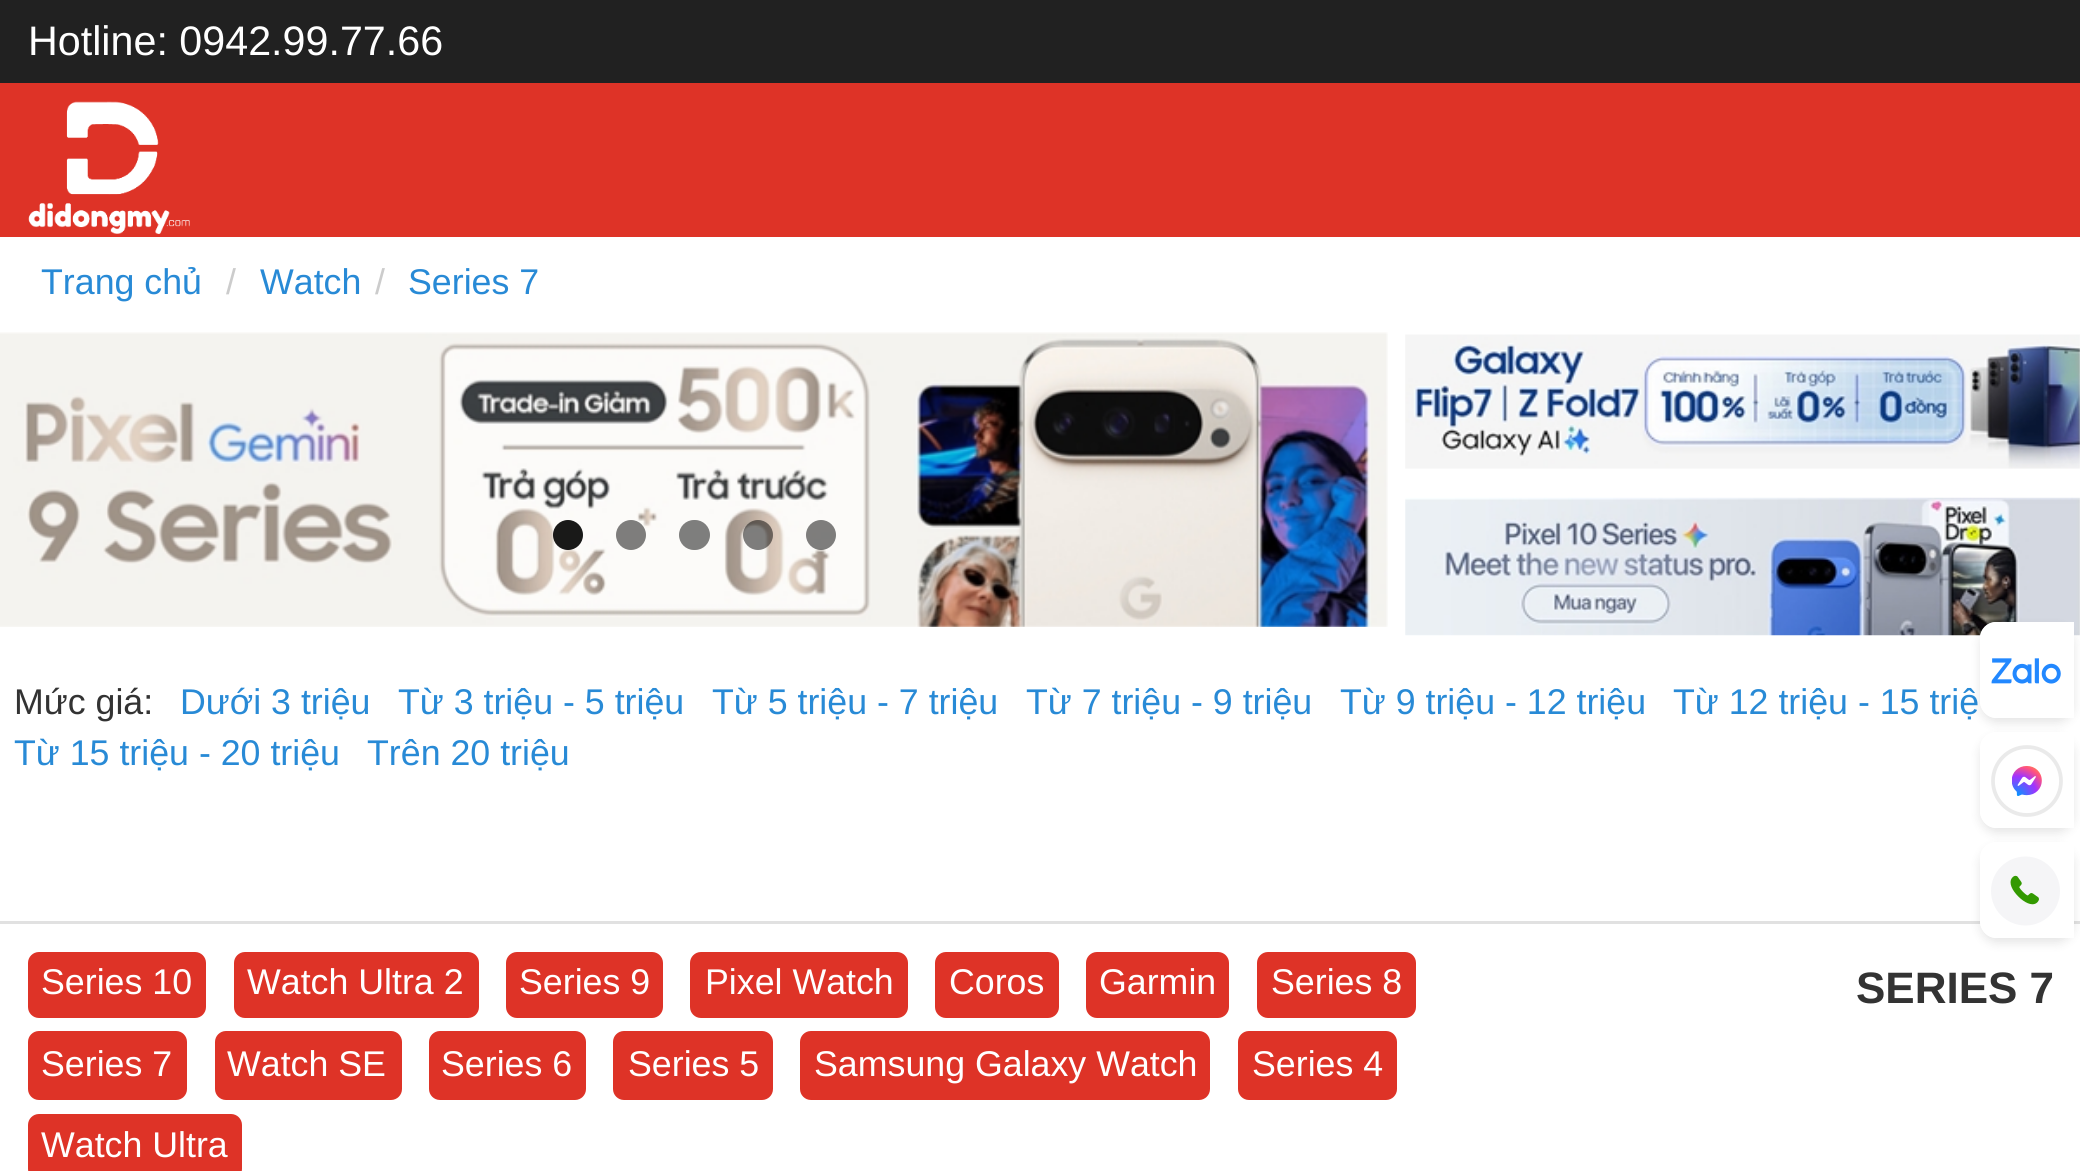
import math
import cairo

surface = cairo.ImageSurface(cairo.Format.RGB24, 2080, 1171)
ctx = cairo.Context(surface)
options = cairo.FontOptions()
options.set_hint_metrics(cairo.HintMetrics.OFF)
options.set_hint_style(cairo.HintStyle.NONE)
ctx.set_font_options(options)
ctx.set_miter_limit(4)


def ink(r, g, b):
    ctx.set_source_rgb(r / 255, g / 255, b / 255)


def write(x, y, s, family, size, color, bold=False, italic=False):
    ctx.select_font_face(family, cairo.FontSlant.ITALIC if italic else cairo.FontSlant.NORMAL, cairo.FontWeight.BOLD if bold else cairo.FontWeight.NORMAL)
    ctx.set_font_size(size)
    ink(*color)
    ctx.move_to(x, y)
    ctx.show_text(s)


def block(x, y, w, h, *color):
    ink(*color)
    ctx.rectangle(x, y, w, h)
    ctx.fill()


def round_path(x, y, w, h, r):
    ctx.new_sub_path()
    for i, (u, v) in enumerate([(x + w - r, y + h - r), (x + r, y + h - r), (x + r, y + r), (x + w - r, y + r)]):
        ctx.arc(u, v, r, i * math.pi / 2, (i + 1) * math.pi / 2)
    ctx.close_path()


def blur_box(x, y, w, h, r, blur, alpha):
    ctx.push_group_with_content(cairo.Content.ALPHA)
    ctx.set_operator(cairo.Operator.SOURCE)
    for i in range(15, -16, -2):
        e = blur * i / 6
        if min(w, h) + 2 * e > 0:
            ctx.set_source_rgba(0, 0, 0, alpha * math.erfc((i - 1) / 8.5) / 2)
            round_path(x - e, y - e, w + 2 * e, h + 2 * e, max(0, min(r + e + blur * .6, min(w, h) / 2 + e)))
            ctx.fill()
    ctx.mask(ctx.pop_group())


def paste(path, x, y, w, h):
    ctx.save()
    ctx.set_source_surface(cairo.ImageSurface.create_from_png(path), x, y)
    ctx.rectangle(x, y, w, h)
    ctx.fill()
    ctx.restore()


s1 = dict(family="Liberation Sans", size=41.25, color=(255, 255, 255))
s2 = dict(family="Liberation Sans", size=35.75, color=(40, 138, 214))
s3 = dict(family="Liberation Sans", size=35.75, color=(204, 204, 204))
s4 = dict(family="Liberation Sans", size=35.75, color=(51, 51, 51))
s5 = dict(family="Liberation Sans", size=35.75, color=(255, 255, 255))
s6 = dict(family="Liberation Sans", size=44, color=(51, 51, 51), bold=True)

ink(255, 255, 255)
ctx.paint()
block(0, 0, 2080, 83, 33, 33, 33)
write(28, 55, "Hotline: 0942.99.77.66", **s1)
block(0, 83, 2080, 154, 222, 51, 39)
paste("pic1.png", 28, 101, 162, 133)
write(41, 294, "Trang chủ", **s2)
write(226, 294, "/", **s3)
write(260, 294, "Watch", **s2)
write(375, 294, "/", **s3)
write(408, 294, "Series 7", **s2)
paste("pic2.png", 0, 332, 1388, 295)
ctx.set_source_rgba(0, 0, 0, 0.9)
ctx.arc(568, 535, 15, 0, 2 * math.pi)
ctx.fill()
ink(126, 125, 124)
ctx.arc(631, 535, 15, 0, 2 * math.pi)
ctx.fill()
ink(126, 126, 125)
round_path(679, 520, 31, 30, 15)
ctx.fill()
ctx.set_source_rgba(0, 0, 0, 0.5)
ctx.arc(758, 535, 15, 0, 2 * math.pi)
ctx.fill()
ctx.arc(821, 535, 15, 0, 2 * math.pi)
ctx.fill()
paste("pic3.png", 1405, 334, 675, 135)
paste("pic4.png", 1405, 497, 675, 139)
block(0, 921, 2080, 3, 225, 225, 225)
write(14, 714, "Mức giá:", **s4)
write(180, 714, "Dưới 3 triệu", **s2)
write(398, 714, "Từ 3 triệu - 5 triệu", **s2)
write(712, 714, "Từ 5 triệu - 7 triệu", **s2)
write(1026, 714, "Từ 7 triệu - 9 triệu", **s2)
write(1340, 714, "Từ 9 triệu - 12 triệu", **s2)
write(1673, 714, "Từ 12 triệu - 15 triệ", **s2)
write(14, 765, "Từ 15 triệu - 20 triệu", **s2)
write(367, 765, "Trên 20 triệu", **s2)
ink(222, 51, 39)
round_path(28, 952, 178, 66, 11)
ctx.fill()
write(41, 994, "Series 10", **s5)
ink(222, 51, 39)
round_path(234, 952, 245, 66, 11)
ctx.fill()
write(247, 994, "Watch Ultra 2", **s5)
ink(222, 51, 39)
round_path(506, 952, 157, 66, 11)
ctx.fill()
write(519, 994, "Series 9", **s5)
ink(222, 51, 39)
round_path(690, 952, 218, 66, 11)
ctx.fill()
write(705, 994, "Pixel Watch", **s5)
ink(222, 51, 39)
round_path(935, 952, 124, 66, 11)
ctx.fill()
write(949, 994, "Coros", **s5)
ink(222, 51, 39)
round_path(1086, 952, 143, 66, 11)
ctx.fill()
write(1099, 994, "Garmin", **s5)
ink(222, 51, 39)
round_path(1257, 952, 159, 66, 11)
ctx.fill()
write(1271, 994, "Series 8", **s5)
ink(222, 51, 39)
round_path(28, 1031, 159, 69, 11)
ctx.fill()
write(41, 1076, "Series 7", **s5)
ink(222, 51, 39)
round_path(215, 1031, 187, 69, 11)
ctx.fill()
write(227, 1076, "Watch SE", **s5)
ink(222, 51, 39)
round_path(429, 1031, 157, 69, 11)
ctx.fill()
write(441, 1076, "Series 6", **s5)
ink(222, 51, 39)
round_path(613, 1031, 160, 69, 11)
ctx.fill()
write(628, 1076, "Series 5", **s5)
ink(222, 51, 39)
round_path(800, 1031, 410, 69, 11)
ctx.fill()
write(814, 1076, "Samsung Galaxy Watch", **s5)
ink(222, 51, 39)
round_path(1238, 1031, 159, 69, 11)
ctx.fill()
write(1252, 1076, "Series 4", **s5)
ink(222, 51, 39)
round_path(28, 1114, 214, 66, 11)
ctx.fill()
write(41, 1157, "Watch Ultra", **s5)
write(1856, 1003, "SERIES 7", **s6)
ink(0, 0, 0)
blur_box(1980, 627, 94, 96, 17, 5, 0.1)
ink(255, 255, 255)
ctx.new_path()
ctx.move_to(1997, 622)
ctx.line_to(2074, 622)
ctx.line_to(2074, 718)
ctx.line_to(1997, 718)
ctx.curve_to(1987.5, 718, 1980, 710.5, 1980, 701)
ctx.line_to(1980, 639)
ctx.curve_to(1980, 629.5, 1987.5, 622, 1997, 622)
ctx.close_path()
ctx.fill()
ctx.set_fill_rule(cairo.FillRule.EVEN_ODD)
ctx.new_path()
ctx.move_to(1996, 622)
ctx.line_to(2074, 622)
ctx.line_to(2074, 718)
ctx.line_to(1996, 718)
ctx.curve_to(1987, 718, 1980, 710, 1980, 701)
ctx.line_to(1980, 638)
ctx.curve_to(1980, 629, 1987, 622, 1996, 622)
ctx.close_path()
ctx.move_to(1996, 624)
ctx.line_to(2074, 624)
ctx.line_to(2074, 715)
ctx.line_to(1996, 715)
ctx.curve_to(1989, 715, 1983, 709, 1983, 701)
ctx.line_to(1983, 638)
ctx.curve_to(1983, 630, 1989, 624, 1996, 624)
ctx.close_path()
ctx.fill()
paste("pic5.png", 1991, 658, 70, 26)
ink(0, 0, 0)
blur_box(1980, 737, 94, 96, 17, 5, 0.1)
ink(255, 255, 255)
ctx.new_path()
ctx.move_to(1997, 732)
ctx.line_to(2074, 732)
ctx.line_to(2074, 828)
ctx.line_to(1997, 828)
ctx.curve_to(1987.5, 828, 1980, 820.5, 1980, 811)
ctx.line_to(1980, 749)
ctx.curve_to(1980, 739.5, 1987.5, 732, 1997, 732)
ctx.close_path()
ctx.fill()
ctx.new_path()
ctx.move_to(1996, 732)
ctx.line_to(2074, 732)
ctx.line_to(2074, 828)
ctx.line_to(1996, 828)
ctx.curve_to(1987, 828, 1980, 820, 1980, 811)
ctx.line_to(1980, 748)
ctx.curve_to(1980, 739, 1987, 732, 1996, 732)
ctx.close_path()
ctx.move_to(1996, 734)
ctx.line_to(2074, 734)
ctx.line_to(2074, 825)
ctx.line_to(1996, 825)
ctx.curve_to(1989, 825, 1983, 819, 1983, 811)
ctx.line_to(1983, 748)
ctx.curve_to(1983, 740, 1989, 734, 1996, 734)
ctx.close_path()
ctx.fill()
paste("pic6.png", 1991, 745, 72, 72)
ink(0, 0, 0)
blur_box(1980, 847, 94, 96, 17, 5, 0.1)
ink(255, 255, 255)
ctx.new_path()
ctx.move_to(1997, 842)
ctx.line_to(2074, 842)
ctx.line_to(2074, 938)
ctx.line_to(1997, 938)
ctx.curve_to(1987.5, 938, 1980, 930.5, 1980, 921)
ctx.line_to(1980, 859)
ctx.curve_to(1980, 849.5, 1987.5, 842, 1997, 842)
ctx.close_path()
ctx.fill()
ctx.new_path()
ctx.move_to(1996, 842)
ctx.line_to(2074, 842)
ctx.line_to(2074, 938)
ctx.line_to(1996, 938)
ctx.curve_to(1987, 938, 1980, 930, 1980, 921)
ctx.line_to(1980, 858)
ctx.curve_to(1980, 849, 1987, 842, 1996, 842)
ctx.close_path()
ctx.move_to(1996, 844)
ctx.line_to(2074, 844)
ctx.line_to(2074, 935)
ctx.line_to(1996, 935)
ctx.curve_to(1989, 935, 1983, 929, 1983, 921)
ctx.line_to(1983, 858)
ctx.curve_to(1983, 850, 1989, 844, 1996, 844)
ctx.close_path()
ctx.fill()
paste("pic7.png", 1991, 856, 69, 70)
surface.write_to_png("screenshot.png")
